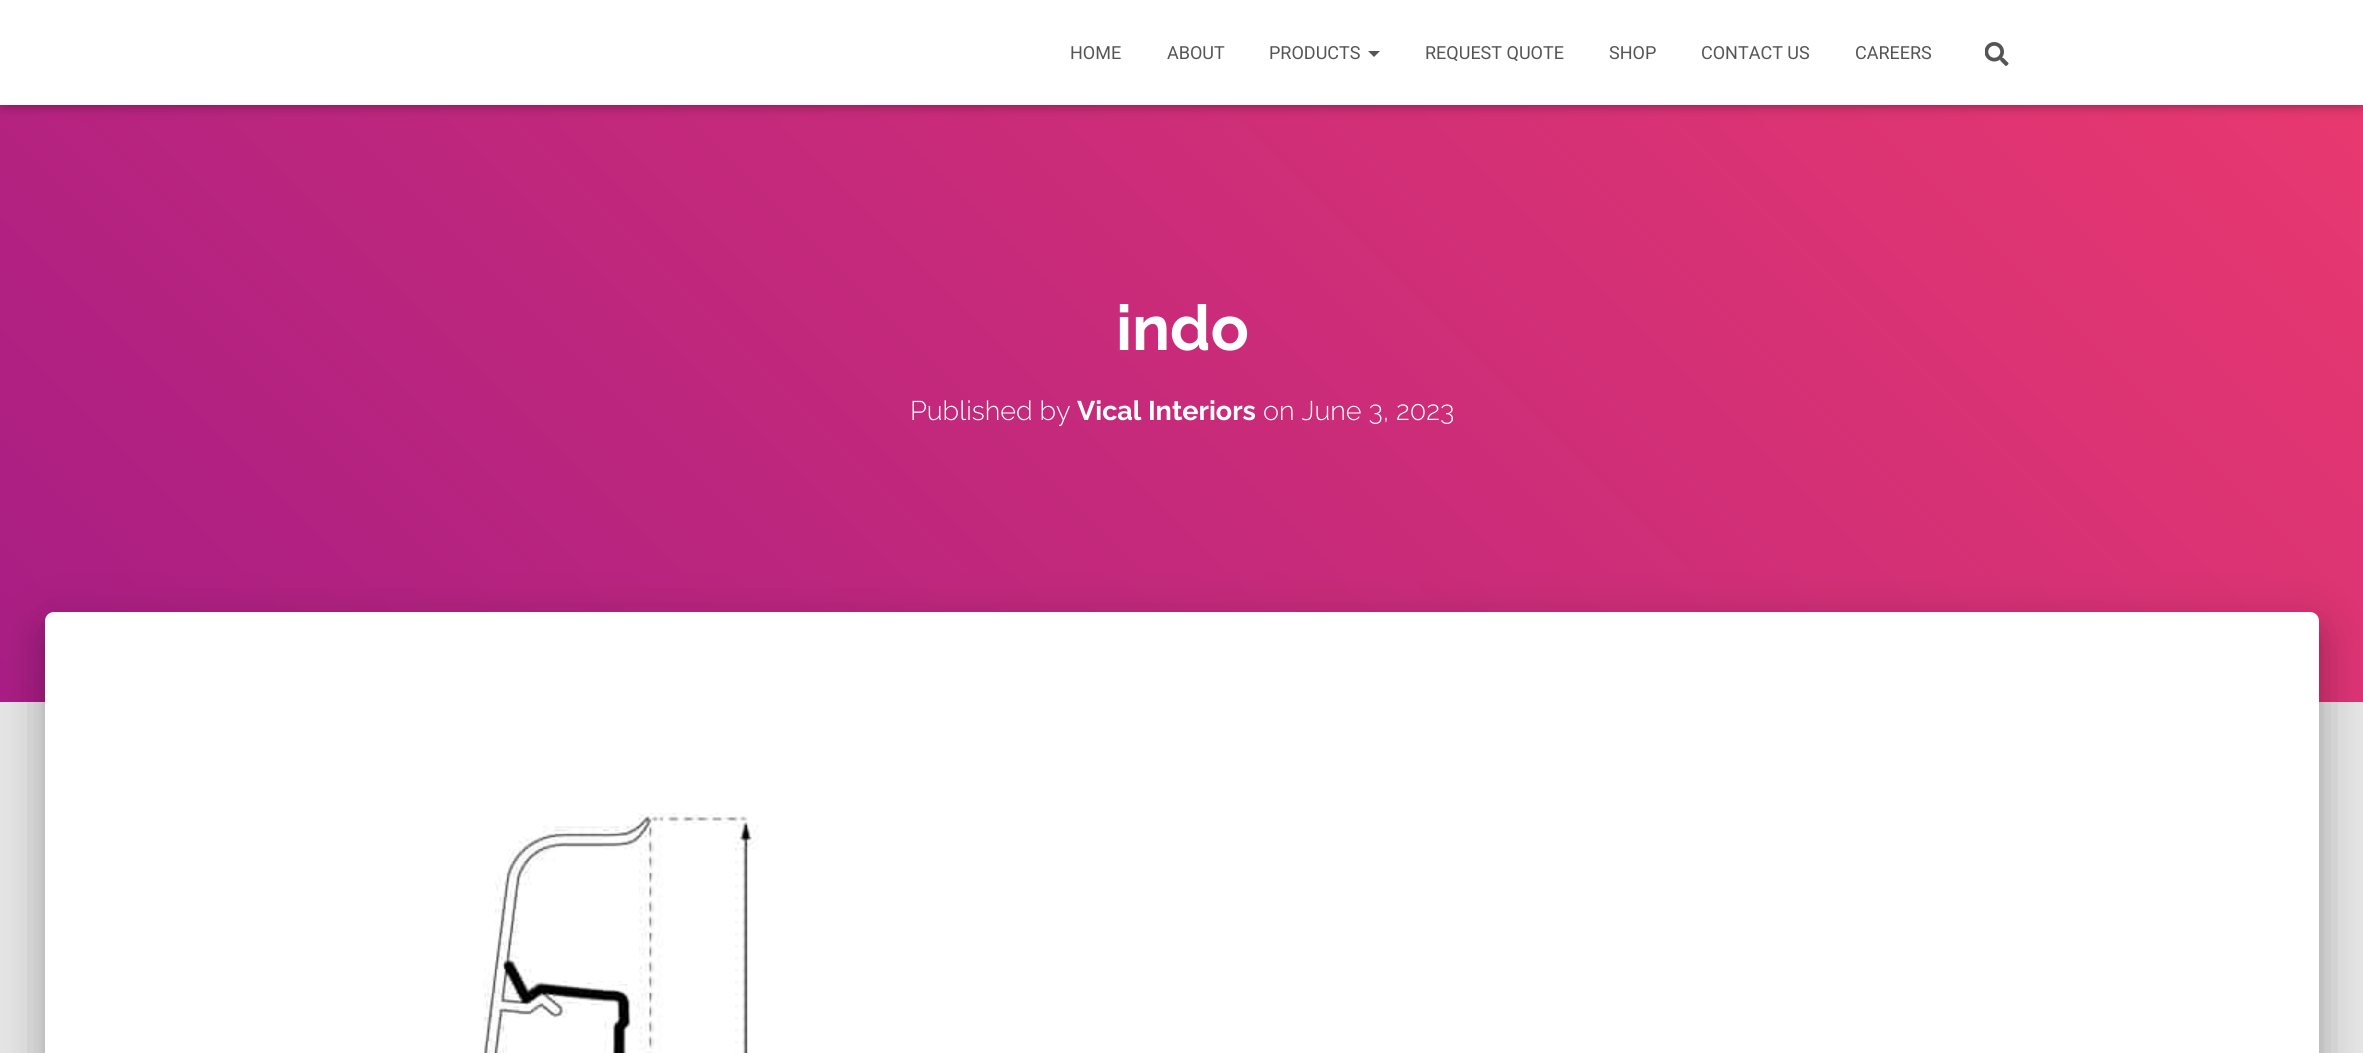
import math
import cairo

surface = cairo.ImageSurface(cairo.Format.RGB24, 2363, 1053)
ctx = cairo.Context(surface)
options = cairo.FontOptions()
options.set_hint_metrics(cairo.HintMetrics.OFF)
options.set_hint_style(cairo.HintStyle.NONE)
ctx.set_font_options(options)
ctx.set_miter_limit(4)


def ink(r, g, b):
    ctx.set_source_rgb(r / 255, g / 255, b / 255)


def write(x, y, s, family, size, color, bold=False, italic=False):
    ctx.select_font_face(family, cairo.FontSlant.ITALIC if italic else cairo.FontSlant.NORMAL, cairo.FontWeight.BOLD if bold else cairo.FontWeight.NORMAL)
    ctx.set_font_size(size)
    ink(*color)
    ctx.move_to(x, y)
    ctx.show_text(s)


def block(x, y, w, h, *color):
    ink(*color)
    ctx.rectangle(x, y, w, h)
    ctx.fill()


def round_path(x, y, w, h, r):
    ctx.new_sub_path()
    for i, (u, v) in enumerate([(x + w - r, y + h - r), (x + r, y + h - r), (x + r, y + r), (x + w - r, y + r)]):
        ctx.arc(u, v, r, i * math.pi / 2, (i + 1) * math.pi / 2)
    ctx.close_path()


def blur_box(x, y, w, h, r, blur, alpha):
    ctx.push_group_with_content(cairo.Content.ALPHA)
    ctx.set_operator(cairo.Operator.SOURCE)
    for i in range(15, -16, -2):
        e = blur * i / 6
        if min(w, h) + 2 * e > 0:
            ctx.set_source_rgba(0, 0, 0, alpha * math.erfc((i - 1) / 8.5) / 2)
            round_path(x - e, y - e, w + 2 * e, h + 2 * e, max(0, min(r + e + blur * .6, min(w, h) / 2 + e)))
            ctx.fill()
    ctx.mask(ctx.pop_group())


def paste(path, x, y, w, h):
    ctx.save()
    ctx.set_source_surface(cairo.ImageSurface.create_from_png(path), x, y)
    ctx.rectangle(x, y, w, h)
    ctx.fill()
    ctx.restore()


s1 = dict(family="Roboto", size=18, color=(85, 85, 85))
s2 = dict(family="Raleway", size=63, color=(255, 255, 255), bold=True)
s3 = dict(family="Raleway Light", size=27, color=(255, 255, 255))
s4 = dict(family="Raleway", size=27, color=(255, 255, 255), bold=True)

ink(229, 229, 229)
ctx.paint()
gradient = cairo.LinearGradient(416, 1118, 1949, -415)
gradient.add_color_stop_rgba(0, 0.659, 0.114, 0.518, 1)
gradient.add_color_stop_rgba(1, 0.918, 0.224, 0.435, 1)
ctx.set_source(gradient)
ctx.rectangle(0, 105, 2363, 597)
ctx.fill()
ink(0, 0, 0)
blur_box(3, 9, 2358, 99, 0, 4, 0.1)
blur_box(0, 2, 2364, 105, 0, 7.5, 0.12)
blur_box(9, 11, 2346, 87, 0, 7.5, 0.42)
block(0, 0, 2363, 105, 255, 255, 255)
write(1070, 59, "HOME", **s1)
write(1167, 59, "ABOUT", **s1)
write(1269, 59, "PRODUCTS", **s1)
ctx.new_path()
ctx.move_to(1368, 51)
ctx.line_to(1380, 51)
ctx.line_to(1374, 57)
ctx.close_path()
ctx.fill()
write(1425, 59, "REQUEST QUOTE", **s1)
write(1609, 59, "SHOP", **s1)
write(1701, 59, "CONTACT US", **s1)
write(1855, 59, "CAREERS", **s1)
paste("pic1.png", 1985, 42, 24, 24)
write(1116, 350, "indo", **s2)
write(910, 420, "Published by", **s3)
write(1077, 420, "Vical Interiors", **s4)
write(1263, 420, "on June 3, 2023", **s3)
ink(0, 0, 0)
blur_box(53, 632, 2259, 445, 1.5, 7.5, 0.2)
blur_box(38, 614, 2289, 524, 17, 22.5, 0.12)
blur_box(42, 633, 2280, 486, 12, 18, 0.14)
ink(255, 255, 255)
ctx.new_path()
ctx.move_to(54, 612)
ctx.line_to(2310, 612)
ctx.curve_to(2315, 612, 2319, 616, 2319, 621)
ctx.line_to(2319, 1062)
ctx.line_to(45, 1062)
ctx.line_to(45, 621)
ctx.curve_to(45, 616, 49, 612, 54, 612)
ctx.close_path()
ctx.fill()
paste("pic2.png", 483, 813, 276, 240)
surface.write_to_png("screenshot.png")
